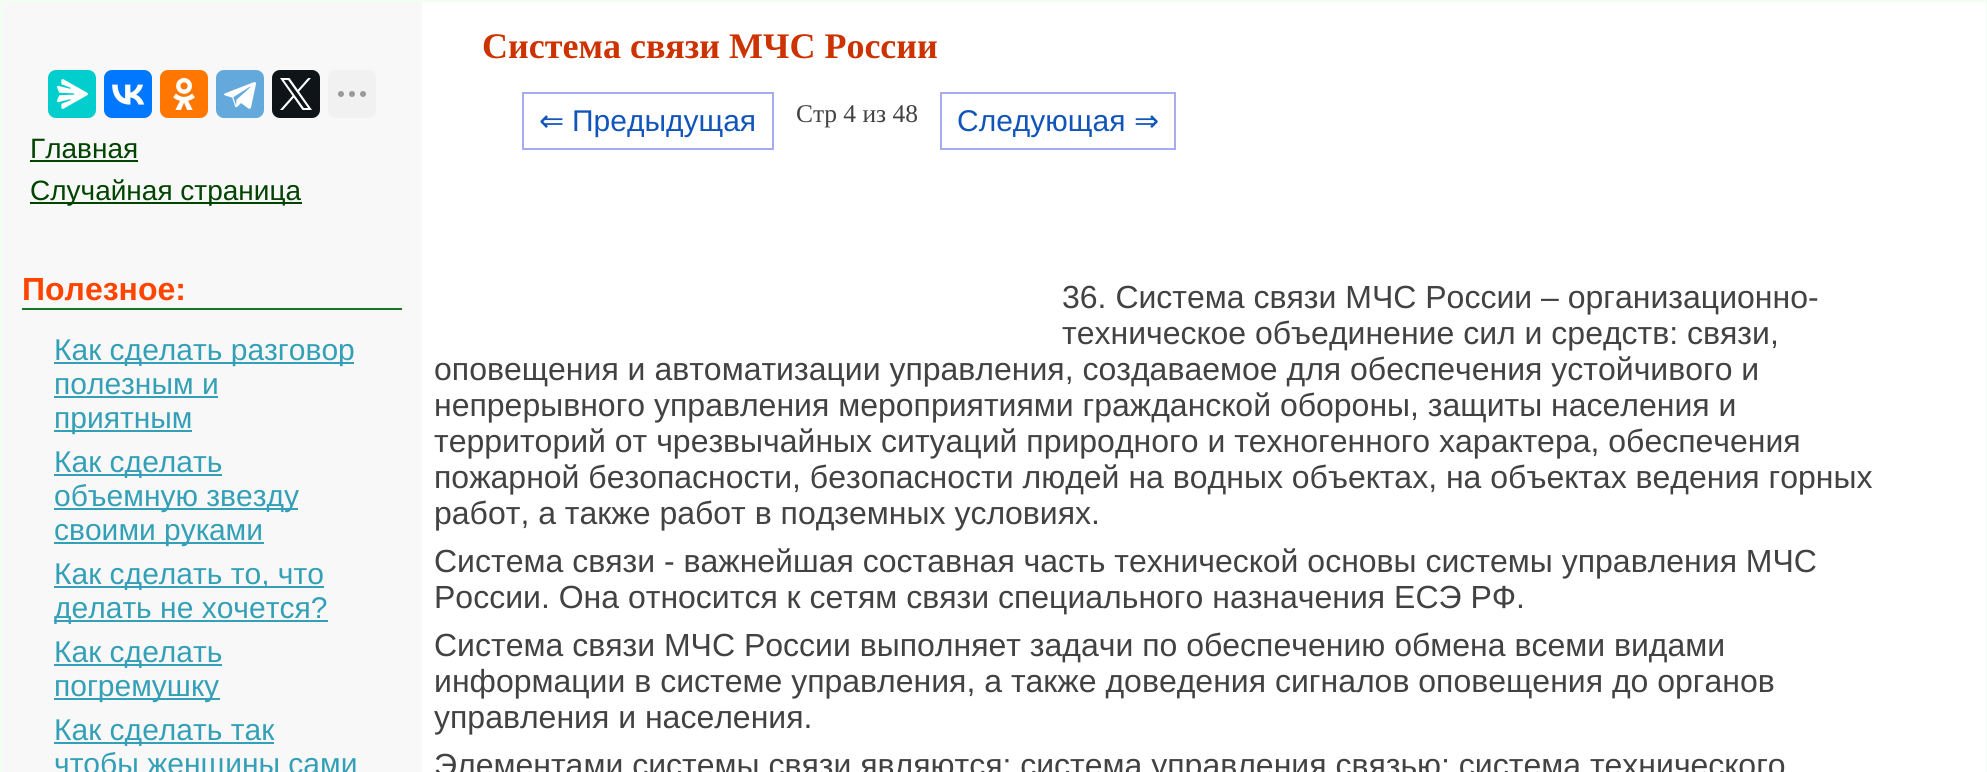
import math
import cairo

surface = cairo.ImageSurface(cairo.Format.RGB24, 1987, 772)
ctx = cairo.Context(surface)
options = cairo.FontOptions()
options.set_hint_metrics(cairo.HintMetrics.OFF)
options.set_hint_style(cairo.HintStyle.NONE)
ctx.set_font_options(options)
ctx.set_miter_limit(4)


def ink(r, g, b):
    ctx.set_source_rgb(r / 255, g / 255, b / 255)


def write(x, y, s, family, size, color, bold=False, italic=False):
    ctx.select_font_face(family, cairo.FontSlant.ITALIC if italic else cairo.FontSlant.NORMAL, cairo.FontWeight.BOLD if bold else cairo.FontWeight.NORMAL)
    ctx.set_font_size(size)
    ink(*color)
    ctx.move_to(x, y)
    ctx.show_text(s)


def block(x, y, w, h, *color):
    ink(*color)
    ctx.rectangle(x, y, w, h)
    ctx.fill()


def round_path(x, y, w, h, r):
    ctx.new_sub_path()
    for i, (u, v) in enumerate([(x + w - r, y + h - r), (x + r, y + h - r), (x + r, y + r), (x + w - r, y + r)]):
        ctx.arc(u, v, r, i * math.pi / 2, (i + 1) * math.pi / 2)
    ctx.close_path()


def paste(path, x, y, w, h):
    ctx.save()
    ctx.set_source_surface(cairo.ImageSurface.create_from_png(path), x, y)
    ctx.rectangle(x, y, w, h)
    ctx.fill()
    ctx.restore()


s1 = dict(family="Liberation Sans", size=28, color=(0, 68, 0))
s2 = dict(family="Liberation Sans", size=32, color=(255, 68, 0), bold=True)
s3 = dict(family="Liberation Sans", size=30, color=(52, 160, 183))
s4 = dict(family="Liberation Serif", size=36, color=(204, 51, 0), bold=True)
s5 = dict(family="DejaVu Sans", size=30, color=(17, 85, 187))
s6 = dict(family="Liberation Sans", size=30, color=(17, 85, 187))
s7 = dict(family="Liberation Serif", size=25.5, color=(66, 66, 66))
s8 = dict(family="Liberation Sans", size=32, color=(66, 66, 66))

ink(240, 255, 240)
ctx.paint()
block(2, 2, 420, 770, 248, 248, 248)
ink(3, 206, 206)
round_path(48, 70, 48, 48, 8)
ctx.fill()
paste("pic1.png", 57, 79, 31, 30)
ink(0, 119, 255)
round_path(104, 70, 48, 48, 8)
ctx.fill()
paste("pic2.png", 112, 84, 33, 21)
ink(255, 119, 0)
round_path(160, 70, 48, 48, 8)
ctx.fill()
paste("pic3.png", 173, 78, 22, 32)
ink(100, 169, 220)
round_path(216, 70, 48, 48, 8)
ctx.fill()
paste("pic4.png", 224, 82, 32, 27)
ink(15, 20, 25)
round_path(272, 70, 48, 48, 8)
ctx.fill()
paste("pic5.png", 280, 78, 32, 32)
ink(241, 241, 241)
round_path(328, 70, 48, 48, 8)
ctx.fill()
paste("pic6.png", 338, 91, 28, 6)
write(30, 158, "Главная", **s1)
block(30, 160, 108, 2, 0, 68, 0)
block(30, 202, 272, 2, 0, 68, 0)
write(30, 200, "Случайная страница", **s1)
block(22, 308, 380, 2, 21, 119, 33)
write(22, 300, "Полезное:", **s2)
block(54, 362, 300, 2, 52, 160, 183)
write(54, 360, "Как сделать разговор", **s3)
write(54, 394, "полезным и", **s3)
block(54, 396, 164, 2, 52, 160, 183)
block(54, 430, 138, 2, 52, 160, 183)
write(54, 428, "приятным", **s3)
block(54, 474, 168, 2, 52, 160, 183)
write(54, 472, "Как сделать", **s3)
block(54, 508, 244, 2, 52, 160, 183)
write(54, 506, "объемную звезду", **s3)
block(54, 542, 210, 2, 52, 160, 183)
write(54, 540, "своими руками", **s3)
block(54, 586, 270, 2, 52, 160, 183)
write(54, 584, "Как сделать то, что", **s3)
block(54, 620, 274, 2, 52, 160, 183)
write(54, 618, "делать не хочется?", **s3)
block(54, 664, 168, 2, 52, 160, 183)
write(54, 662, "Как сделать", **s3)
block(54, 698, 166, 2, 52, 160, 183)
write(54, 696, "погремушку", **s3)
block(54, 742, 220, 2, 52, 160, 183)
write(54, 740, "Как сделать так", **s3)
write(54, 774, "чтобы женщины сами", **s3)
block(422, 2, 1564, 770, 255, 255, 255)
write(482, 58, "Система связи МЧС России", **s4)
ctx.rectangle(523, 93, 250, 56)
ink(170, 170, 238)
ctx.stroke()
write(539, 131, "⇐", **s5)
write(572, 131, "Предыдущая", **s6)
write(796, 122, "Стр 4 из 48", **s7)
ctx.rectangle(941, 93, 234, 56)
ink(170, 170, 238)
ctx.stroke()
write(957, 131, "Следующая", **s6)
write(1134, 131, "⇒", **s5)
write(1062, 308, "36. Система связи МЧС России – организационно-", **s8)
write(1062, 344, "техническое объединение сил и средств: связи,", **s8)
write(434, 380, "оповещения и автоматизации управления, создаваемое для обеспечения устойчивого и", **s8)
write(434, 416, "непрерывного управления мероприятиями гражданской обороны, защиты населения и", **s8)
write(434, 452, "территорий от чрезвычайных ситуаций природного и техногенного характера, обеспечения", **s8)
write(434, 488, "пожарной безопасности, безопасности людей на водных объектах, на объектах ведения горных", **s8)
write(434, 524, "работ, а также работ в подземных условиях.", **s8)
write(434, 572, "Система связи - важнейшая составная часть технической основы системы управления МЧС", **s8)
write(434, 608, "России. Она относится к сетям связи специального назначения ЕСЭ РФ.", **s8)
write(434, 656, "Система связи МЧС России выполняет задачи по обеспечению обмена всеми видами", **s8)
write(434, 692, "информации в системе управления, а также доведения сигналов оповещения до органов", **s8)
write(434, 728, "управления и населения.", **s8)
write(434, 776, "Элементами системы связи являются: система управления связью; система технического", **s8)
surface.write_to_png("screenshot.png")
